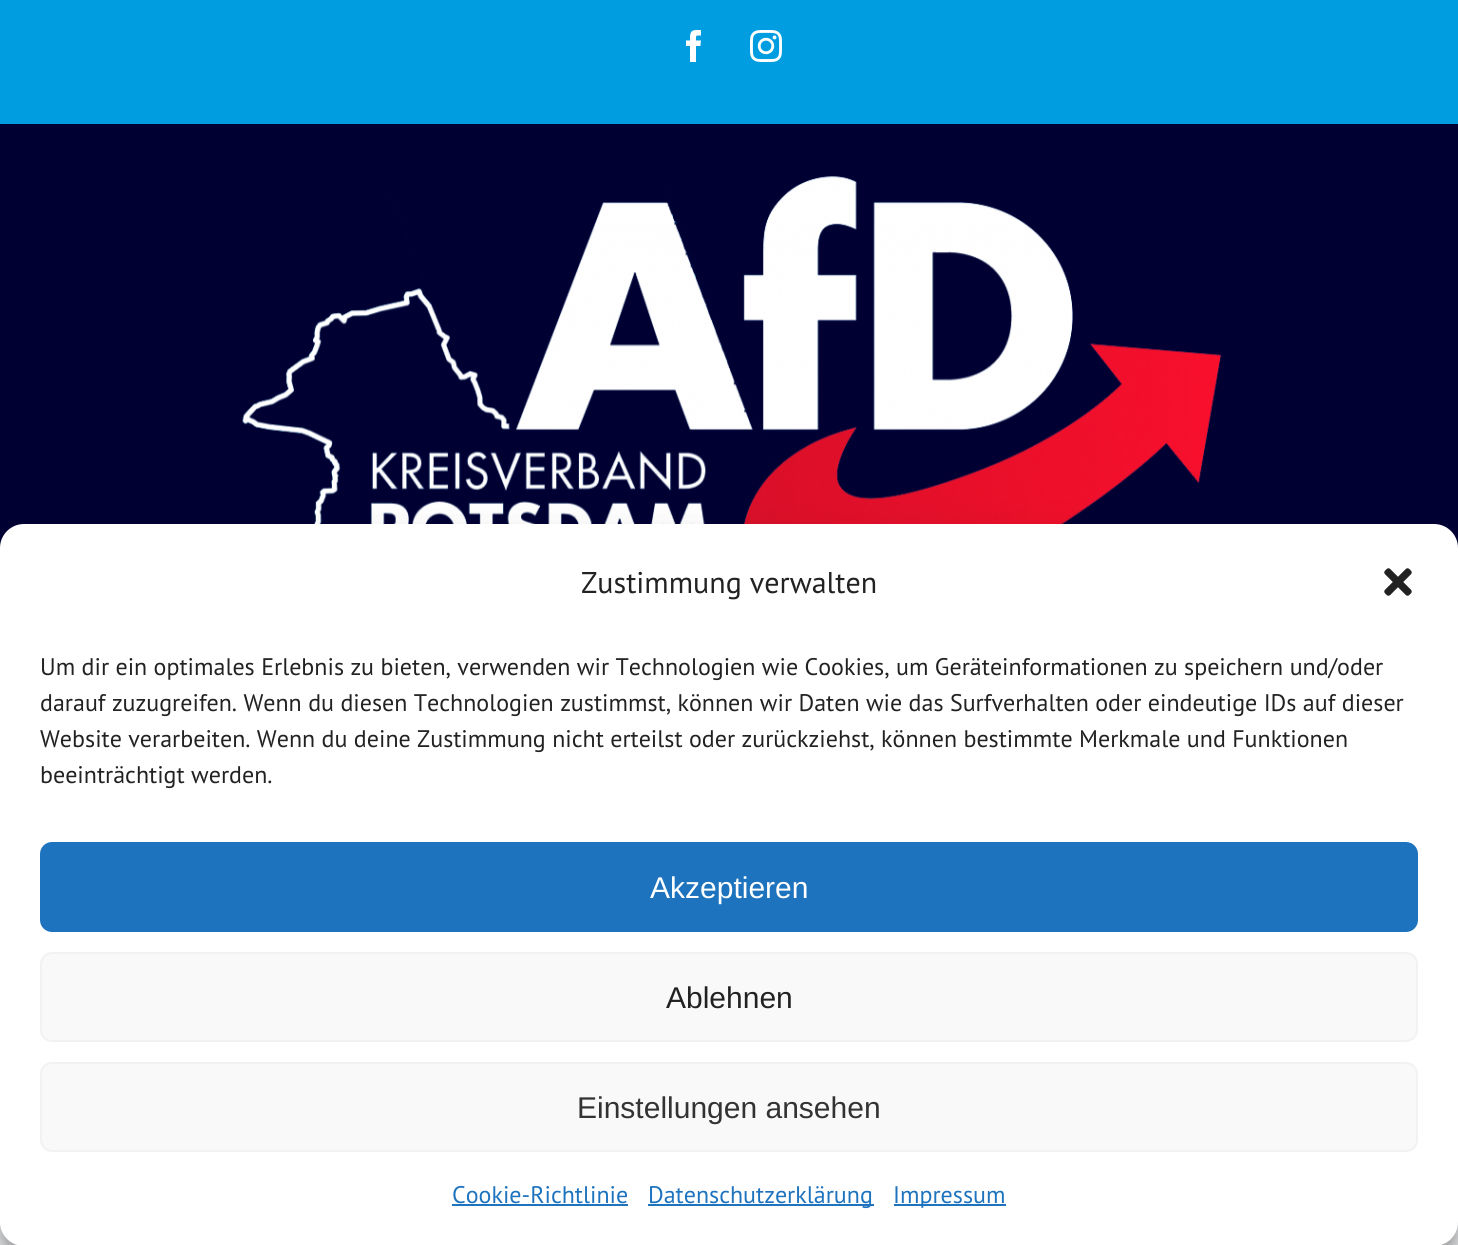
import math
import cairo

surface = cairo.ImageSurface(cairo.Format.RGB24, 1458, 1245)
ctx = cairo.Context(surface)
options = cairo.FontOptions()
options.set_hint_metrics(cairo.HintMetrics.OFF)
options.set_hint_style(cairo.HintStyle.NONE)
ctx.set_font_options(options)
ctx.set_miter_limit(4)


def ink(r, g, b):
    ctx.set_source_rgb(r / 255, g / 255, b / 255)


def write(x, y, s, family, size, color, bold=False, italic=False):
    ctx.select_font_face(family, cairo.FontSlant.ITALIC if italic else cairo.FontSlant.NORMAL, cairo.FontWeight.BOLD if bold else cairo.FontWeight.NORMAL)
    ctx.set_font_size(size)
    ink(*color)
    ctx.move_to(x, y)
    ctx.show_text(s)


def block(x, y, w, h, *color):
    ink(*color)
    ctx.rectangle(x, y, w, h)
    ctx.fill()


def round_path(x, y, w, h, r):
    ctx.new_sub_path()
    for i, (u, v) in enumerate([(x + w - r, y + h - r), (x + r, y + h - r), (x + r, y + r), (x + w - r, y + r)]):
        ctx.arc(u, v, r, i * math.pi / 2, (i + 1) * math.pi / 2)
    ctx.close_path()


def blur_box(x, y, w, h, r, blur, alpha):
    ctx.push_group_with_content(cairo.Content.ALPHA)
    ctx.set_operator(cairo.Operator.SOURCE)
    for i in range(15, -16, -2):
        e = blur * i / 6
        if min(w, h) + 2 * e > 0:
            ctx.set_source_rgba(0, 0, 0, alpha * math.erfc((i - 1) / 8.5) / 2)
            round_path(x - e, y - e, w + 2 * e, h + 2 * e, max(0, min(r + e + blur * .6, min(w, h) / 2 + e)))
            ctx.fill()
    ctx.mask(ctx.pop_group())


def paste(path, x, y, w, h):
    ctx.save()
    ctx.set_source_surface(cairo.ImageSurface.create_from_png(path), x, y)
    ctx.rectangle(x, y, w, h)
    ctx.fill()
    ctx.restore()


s1 = dict(family="PT Sans", size=30, color=(34, 34, 34))
s2 = dict(family="PT Sans", size=24, color=(34, 34, 34))
s3 = dict(family="Liberation Sans", size=30, color=(255, 255, 255))
s4 = dict(family="Liberation Sans", size=30, color=(34, 34, 34))
s5 = dict(family="Liberation Sans", size=30, color=(51, 51, 51))
s6 = dict(family="PT Sans", size=24, color=(30, 115, 190))

ink(242, 243, 245)
ctx.paint()
block(0, 0, 1458, 124, 0, 158, 224)
paste("pic1.png", 686, 30, 15, 32)
paste("pic2.png", 750, 30, 32, 32)
block(0, 124, 1458, 424, 0, 0, 51)
paste("pic3.png", 242, 176, 980, 348)
ink(0, 0, 0)
blur_box(0, 536, 1458, 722, 24, 6, 0.23)
blur_box(0, 544, 1458, 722, 24, 20, 0.19)
ink(128, 128, 128)
blur_box(1318, 1098, 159, 120, 4, 5, 1)
ink(255, 255, 255)
round_path(0, 524, 1458, 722, 24)
ctx.fill()
write(581, 593, "Zustimmung verwalten", **s1)
paste("pic4.png", 1384, 568, 28, 28)
write(40, 675, "Um dir ein optimales Erlebnis zu bieten, verwenden wir Technologien wie Cookies, um Geräteinformationen zu speichern und/oder", **s2)
write(40, 711, "darauf zuzugreifen. Wenn du diesen Technologien zustimmst, können wir Daten wie das Surfverhalten oder eindeutige IDs auf dieser", **s2)
write(40, 747, "Website verarbeiten. Wenn du deine Zustimmung nicht erteilst oder zurückziehst, können bestimmte Merkmale und Funktionen", **s2)
write(40, 783, "beeinträchtigt werden.", **s2)
ink(30, 115, 190)
round_path(41, 843, 1376, 88, 11)
ctx.fill_preserve()
ctx.stroke()
write(650, 898, "Akzeptieren", **s3)
ink(249, 249, 249)
round_path(41, 953, 1376, 88, 11)
ctx.fill_preserve()
ink(242, 242, 242)
ctx.stroke()
write(666, 1008, "Ablehnen", **s4)
ink(249, 249, 249)
round_path(41, 1063, 1376, 88, 11)
ctx.fill_preserve()
ink(242, 242, 242)
ctx.stroke()
write(577, 1118, "Einstellungen ansehen", **s5)
write(452, 1203, "Cookie-Richtlinie", **s6)
block(452, 1204, 176, 2, 30, 115, 190)
block(648, 1204, 226, 2, 30, 115, 190)
write(648, 1203, "Datenschutzerklärung", **s6)
block(894, 1204, 112, 2, 30, 115, 190)
write(893, 1203, "Impressum", **s6)
surface.write_to_png("screenshot.png")
